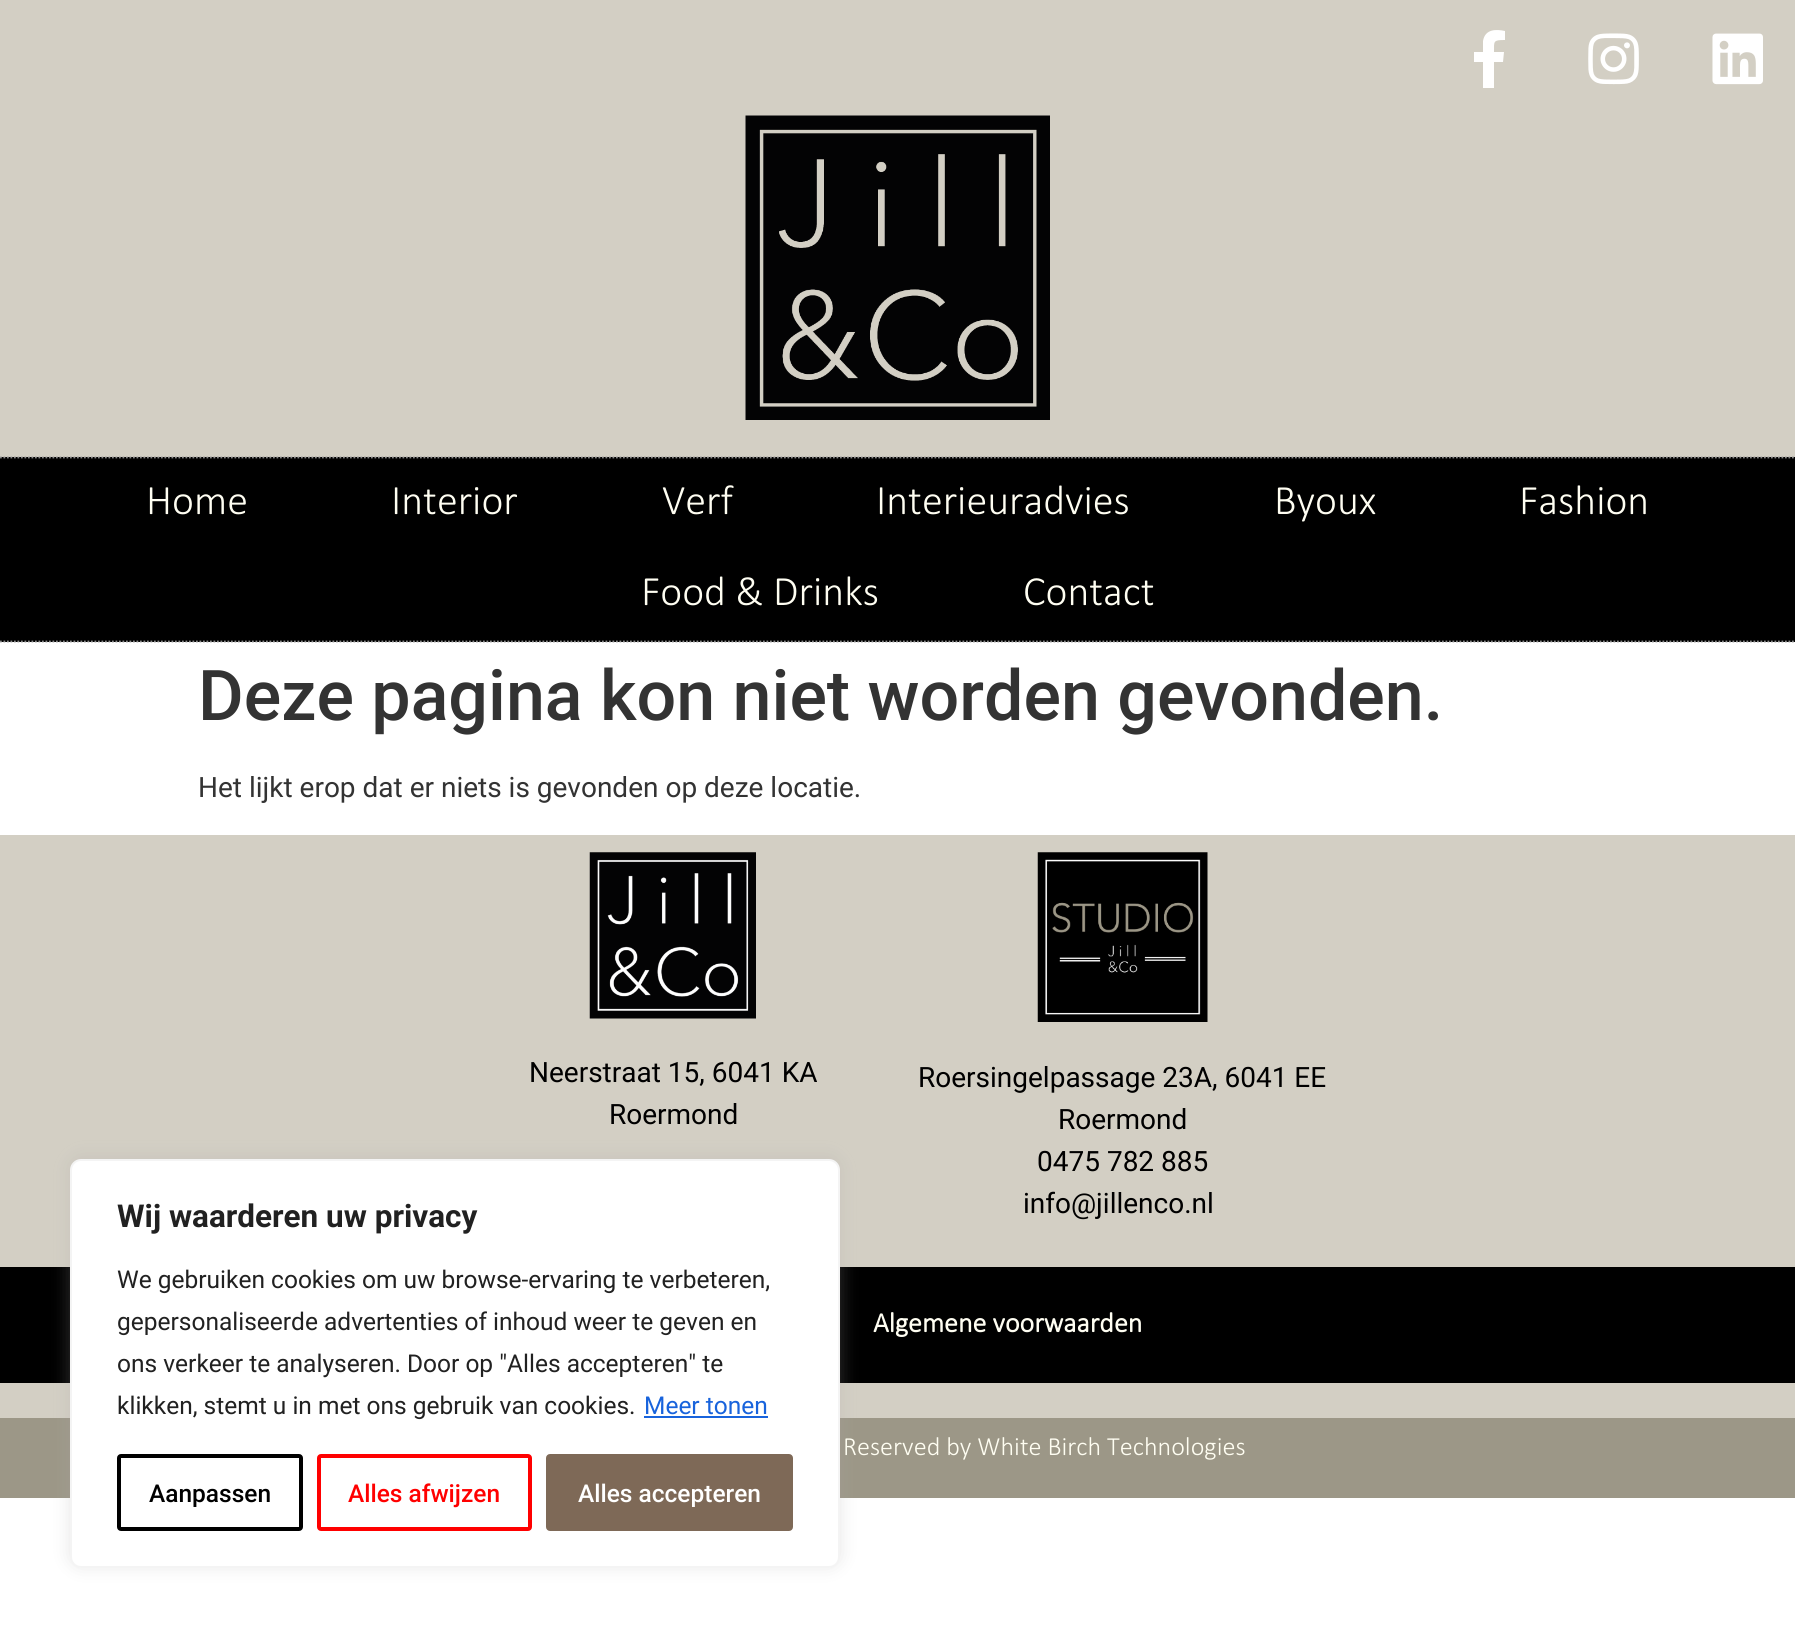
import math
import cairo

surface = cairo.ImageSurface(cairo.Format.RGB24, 1795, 1637)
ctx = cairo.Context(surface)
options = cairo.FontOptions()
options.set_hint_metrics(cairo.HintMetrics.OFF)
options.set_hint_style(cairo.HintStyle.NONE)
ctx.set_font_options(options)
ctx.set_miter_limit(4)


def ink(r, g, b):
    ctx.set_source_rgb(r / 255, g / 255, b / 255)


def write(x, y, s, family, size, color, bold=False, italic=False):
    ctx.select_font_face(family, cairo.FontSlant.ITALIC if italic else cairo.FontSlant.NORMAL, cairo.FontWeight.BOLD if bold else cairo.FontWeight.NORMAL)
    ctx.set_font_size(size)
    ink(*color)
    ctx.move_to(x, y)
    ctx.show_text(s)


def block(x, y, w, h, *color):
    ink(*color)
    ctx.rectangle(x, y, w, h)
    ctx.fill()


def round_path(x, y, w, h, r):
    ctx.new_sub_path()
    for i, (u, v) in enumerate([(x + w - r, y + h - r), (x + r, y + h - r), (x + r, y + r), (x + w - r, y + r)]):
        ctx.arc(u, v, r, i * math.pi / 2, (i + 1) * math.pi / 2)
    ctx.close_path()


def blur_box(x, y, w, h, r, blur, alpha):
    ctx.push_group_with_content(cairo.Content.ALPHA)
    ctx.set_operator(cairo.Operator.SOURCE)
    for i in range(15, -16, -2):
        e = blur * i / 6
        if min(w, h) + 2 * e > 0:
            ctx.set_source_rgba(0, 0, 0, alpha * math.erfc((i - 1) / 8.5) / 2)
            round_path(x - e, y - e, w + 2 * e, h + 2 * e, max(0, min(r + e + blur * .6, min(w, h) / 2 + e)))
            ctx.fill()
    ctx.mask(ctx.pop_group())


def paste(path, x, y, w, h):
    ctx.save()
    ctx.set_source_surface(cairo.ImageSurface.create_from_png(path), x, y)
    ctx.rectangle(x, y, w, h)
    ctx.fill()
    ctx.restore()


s1 = dict(family="Calibri Light", size=42, color=(255, 254, 242))
s2 = dict(family="Roboto Medium", size=70, color=(51, 51, 51))
s3 = dict(family="Roboto", size=28, color=(51, 51, 51))
s4 = dict(family="Roboto", size=31.5, color=(33, 33, 33), bold=True)
s5 = dict(family="Roboto", size=24.5, color=(33, 33, 33))
s6 = dict(family="Roboto", size=24.5, color=(24, 99, 220))
s7 = dict(family="Roboto Medium", size=24.5, color=(0, 0, 0))
s8 = dict(family="Roboto Medium", size=24.5, color=(255, 0, 0))
s9 = dict(family="Roboto Medium", size=24.5, color=(255, 255, 255))
s10 = dict(family="Roboto", size=28, color=(0, 0, 0))
s11 = dict(family="Calibri", size=28, color=(255, 254, 242), bold=True)
s12 = dict(family="Calibri Light", size=26.25, color=(255, 254, 242))

ink(255, 255, 255)
ctx.paint()
block(0, 0, 1795, 457, 211, 207, 196)
ink(255, 255, 255)
ctx.new_path()
ctx.move_to(1503, 62)
ctx.line_to(1494, 62)
ctx.line_to(1494, 88)
ctx.line_to(1483, 88)
ctx.line_to(1483, 62)
ctx.line_to(1474, 62)
ctx.line_to(1474, 52)
ctx.line_to(1483, 52)
ctx.line_to(1483, 41)
ctx.curve_to(1485, 29, 1496, 29, 1505, 31)
ctx.line_to(1505, 40)
ctx.curve_to(1493, 40, 1494, 41, 1494, 52)
ctx.line_to(1504, 52)
ctx.close_path()
ctx.fill()
paste("pic1.png", 1588, 33, 51, 52)
paste("pic2.png", 1712, 33, 51, 52)
paste("pic3.png", 745, 115, 305, 305)
block(0, 457, 1795, 185, 0, 0, 0)
ctx.new_path()
ctx.move_to(0, 457.5)
ctx.line_to(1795.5, 457.5)
ink(142, 142, 142)
ctx.set_line_width(1.8)
ctx.set_dash([1.75, 1.75])
ctx.stroke()
ctx.new_path()
ctx.move_to(0, 641.5)
ctx.line_to(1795.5, 641.5)
ctx.stroke()
write(146, 514, "Home", **s1)
write(391, 514, "Interior", **s1)
write(662, 514, "Verf", **s1)
write(876, 514, "Interieuradvies", **s1)
write(1274, 514, "Byoux", **s1)
write(1519, 514, "Fashion", **s1)
write(641, 605, "Food & Drinks", **s1)
write(1023, 605, "Contact", **s1)
write(198, 720, "Deze pagina kon niet worden gevonden.", **s2)
write(198, 797, "Het lijkt erop dat er niets is gevonden op deze locatie.", **s3)
block(0, 835, 1795, 432, 211, 207, 196)
block(0, 1267, 1795, 116, 0, 0, 0)
block(0, 1418, 1795, 80, 156, 151, 135)
block(0, 1383, 1795, 35, 211, 207, 196)
ink(172, 171, 171)
blur_box(70, 1157, 770, 409, 11, 9, 0.3)
ink(255, 255, 255)
round_path(71, 1160, 768, 407, 10)
ctx.fill_preserve()
ink(244, 244, 244)
ctx.set_line_width(2)
ctx.set_dash([])
ctx.stroke()
write(117, 1227, "Wij waarderen uw privacy", **s4)
write(117, 1288, "We gebruiken cookies om uw browse-ervaring te verbeteren,", **s5)
write(117, 1330, "gepersonaliseerde advertenties of inhoud weer te geven en", **s5)
write(117, 1372, "ons verkeer te analyseren. Door op \"Alles accepteren\" te", **s5)
write(117, 1414, "klikken, stemt u in met ons gebruik van cookies.", **s5)
write(644, 1414, "Meer tonen", **s6)
block(644, 1416, 124, 2, 24, 99, 220)
round_path(119, 1456, 182, 73, 2)
ink(0, 0, 0)
ctx.set_line_width(4)
ctx.stroke()
write(149, 1502, "Aanpassen", **s7)
round_path(319, 1456, 211, 73, 2)
ink(255, 0, 0)
ctx.stroke()
write(348, 1502, "Alles afwijzen", **s8)
ink(126, 105, 87)
round_path(548, 1456, 243, 73, 2)
ctx.fill_preserve()
ctx.stroke()
write(578, 1502, "Alles accepteren", **s9)
paste("pic4.png", 589, 852, 167, 167)
write(529, 1082, "Neerstraat 15, 6041 KA", **s10)
write(609, 1124, "Roermond", **s10)
paste("pic5.png", 1037, 852, 171, 170)
write(918, 1087, "Roersingelpassage 23A, 6041 EE", **s10)
write(1058, 1129, "Roermond", **s10)
write(1037, 1171, "0475 782 885", **s10)
write(1023, 1213, "info@jillenco.nl", **s10)
write(873, 1332, "Algemene voorwaarden", **s11)
write(843, 1455, "Reserved by White Birch Technologies", **s12)
surface.write_to_png("screenshot.png")
